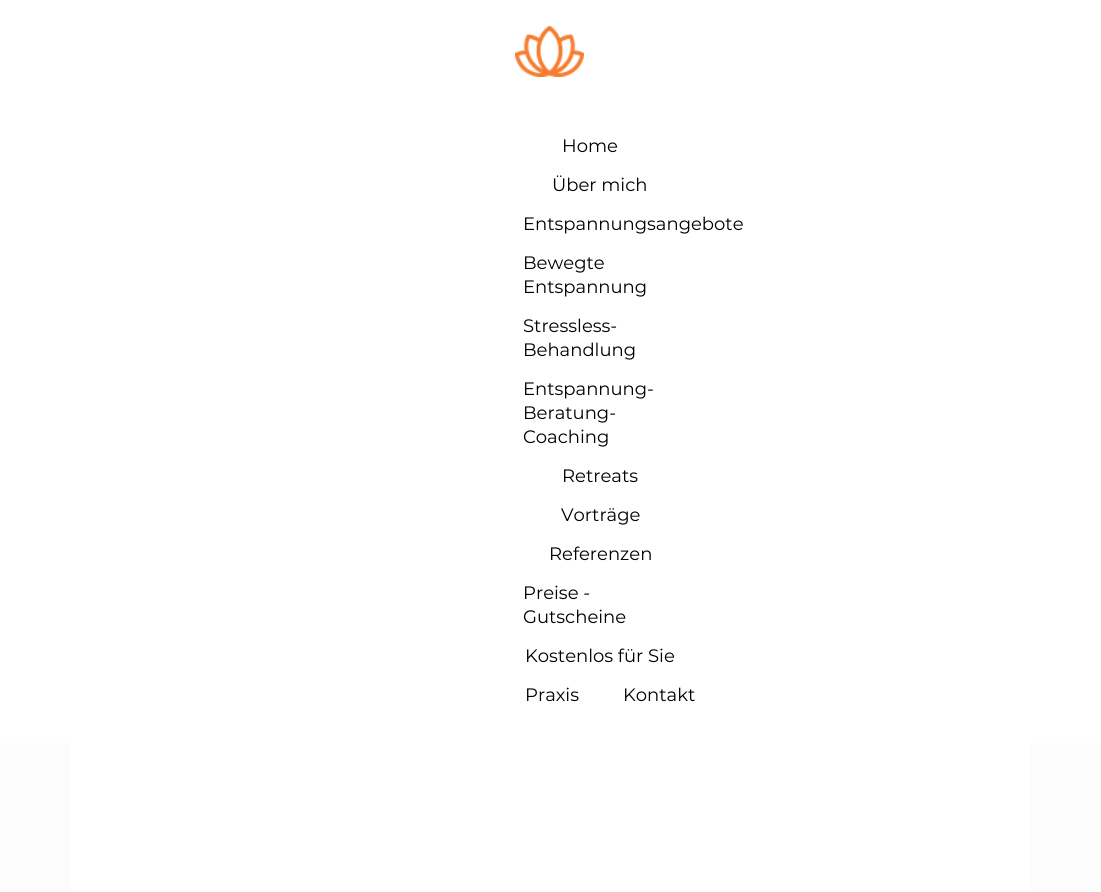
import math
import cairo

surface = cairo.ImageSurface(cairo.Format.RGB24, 1101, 892)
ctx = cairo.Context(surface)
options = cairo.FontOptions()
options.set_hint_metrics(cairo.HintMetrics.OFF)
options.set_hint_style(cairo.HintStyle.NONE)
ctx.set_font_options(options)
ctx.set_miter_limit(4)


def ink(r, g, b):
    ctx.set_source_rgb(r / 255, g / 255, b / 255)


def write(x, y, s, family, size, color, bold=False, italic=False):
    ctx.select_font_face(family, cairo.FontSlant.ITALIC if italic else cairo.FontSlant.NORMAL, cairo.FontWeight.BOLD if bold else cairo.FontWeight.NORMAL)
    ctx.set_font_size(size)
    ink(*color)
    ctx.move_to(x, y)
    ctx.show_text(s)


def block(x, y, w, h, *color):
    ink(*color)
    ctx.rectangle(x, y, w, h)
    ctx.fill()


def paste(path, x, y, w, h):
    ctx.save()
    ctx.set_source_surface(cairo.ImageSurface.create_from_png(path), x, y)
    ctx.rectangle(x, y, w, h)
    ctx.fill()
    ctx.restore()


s1 = dict(family="Montserrat", size=18, color=(0, 0, 0))

ink(252, 252, 252)
ctx.paint()
block(0, 0, 1101, 743, 255, 255, 255)
paste("pic1.png", 515, 26, 69, 51)
write(562, 152, "Home", **s1)
write(552, 191, "Über mich", **s1)
write(523, 230, "Entspannungsangebote", **s1)
write(523, 269, "Bewegte", **s1)
write(523, 293, "Entspannung", **s1)
write(523, 332, "Stressless-", **s1)
write(523, 356, "Behandlung", **s1)
write(523, 395, "Entspannung-", **s1)
write(523, 419, "Beratung-", **s1)
write(523, 443, "Coaching", **s1)
write(562, 482, "Retreats", **s1)
write(561, 521, "Vorträge", **s1)
write(549, 560, "Referenzen", **s1)
write(523, 599, "Preise -", **s1)
write(523, 623, "Gutscheine", **s1)
write(525, 662, "Kostenlos für Sie", **s1)
write(525, 701, "Praxis", **s1)
write(623, 701, "Kontakt", **s1)
block(71, 743, 960, 149, 255, 255, 255)
surface.write_to_png("screenshot.png")
